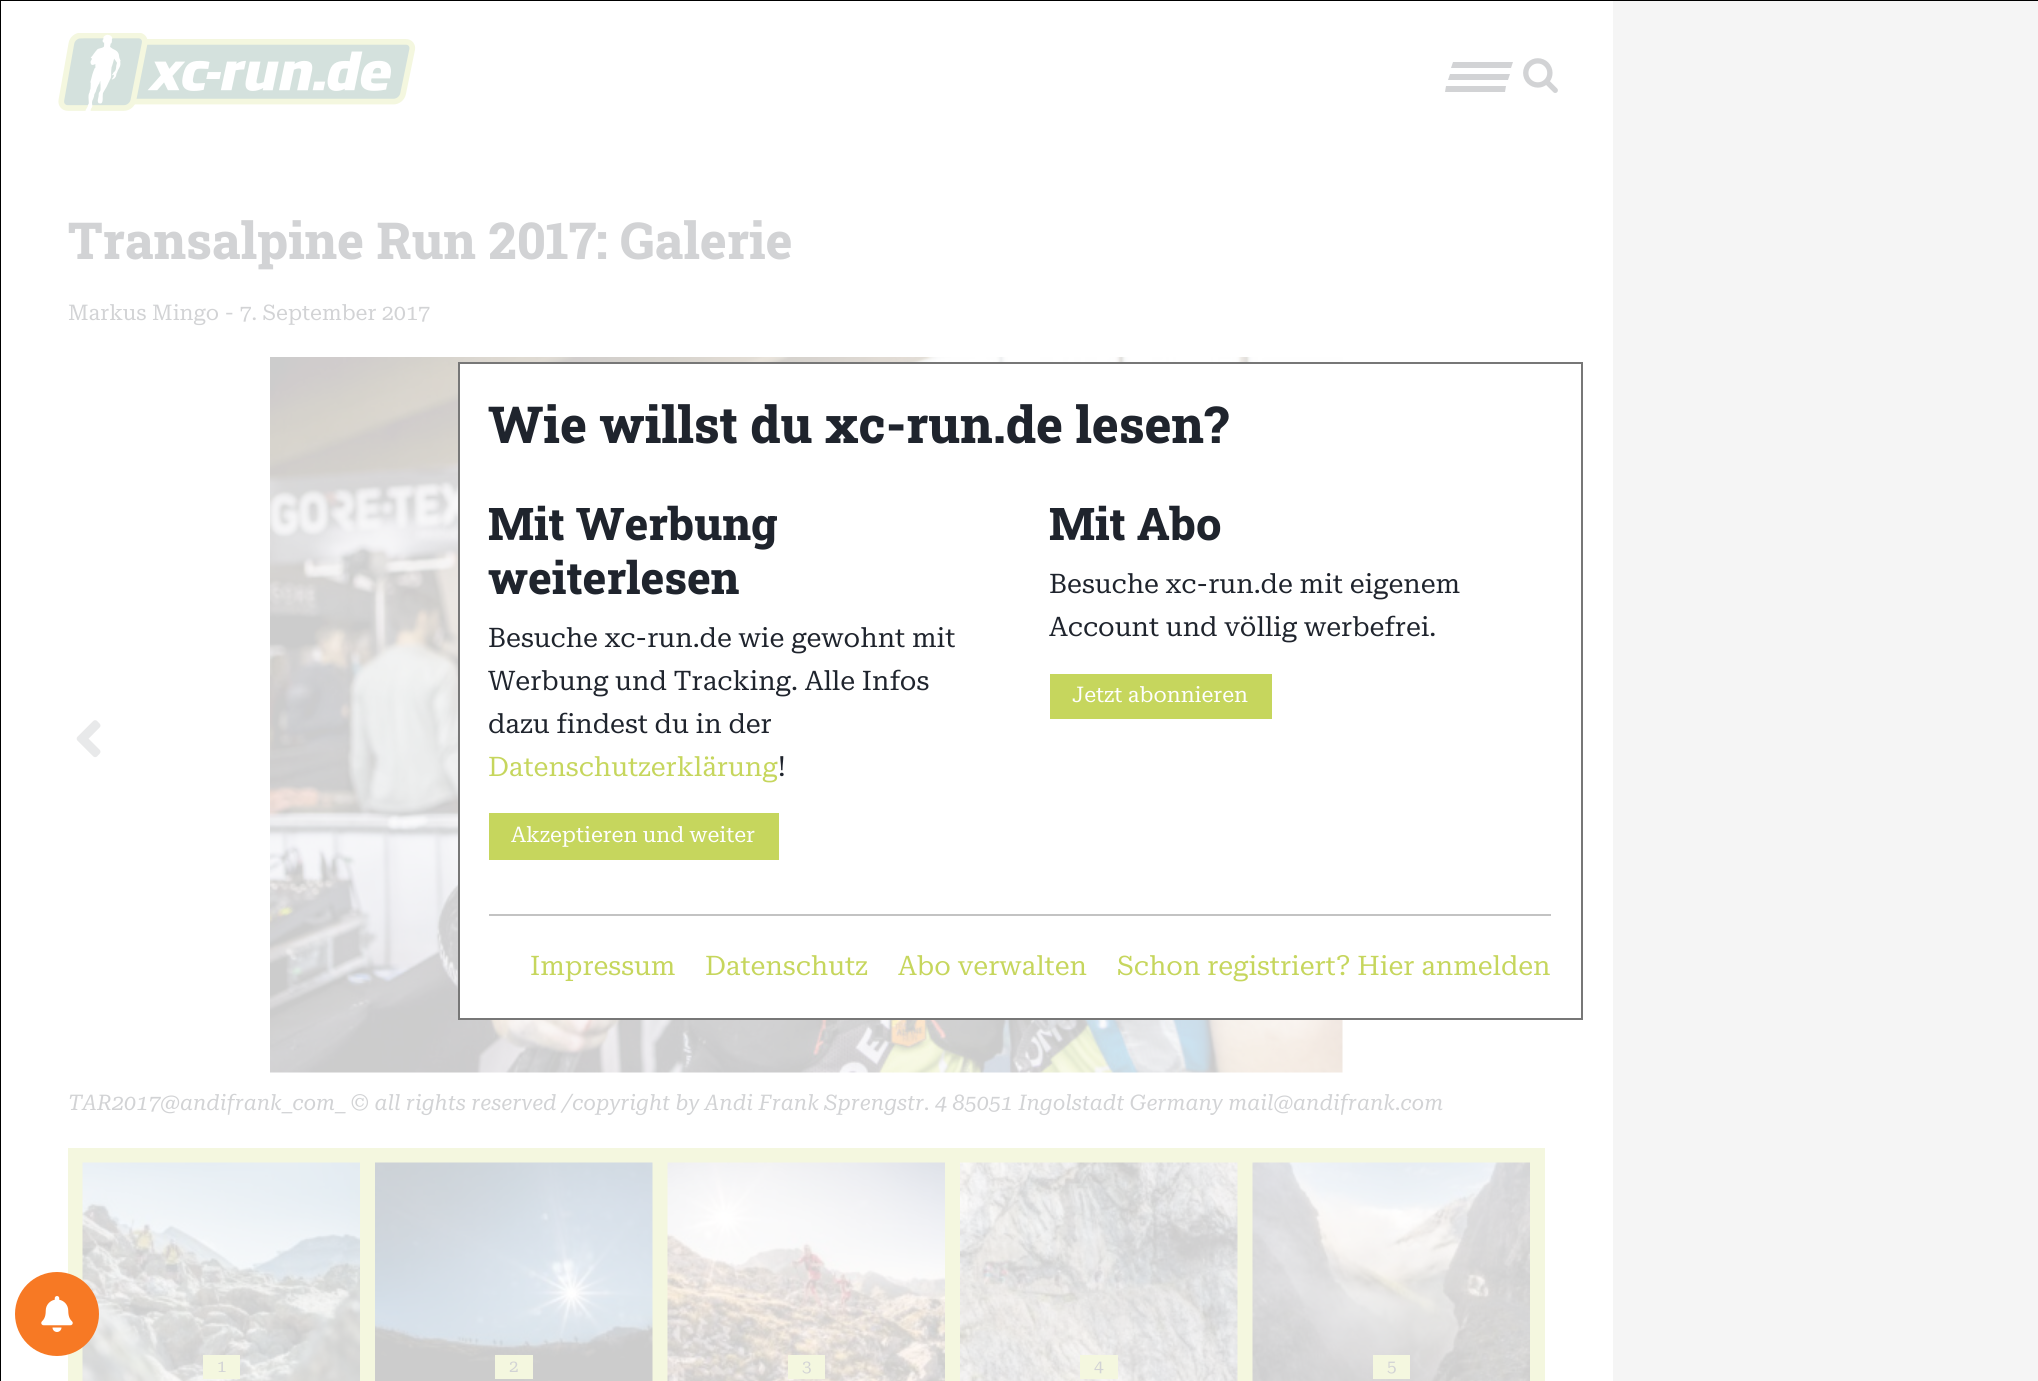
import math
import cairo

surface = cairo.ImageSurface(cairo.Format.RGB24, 2038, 1381)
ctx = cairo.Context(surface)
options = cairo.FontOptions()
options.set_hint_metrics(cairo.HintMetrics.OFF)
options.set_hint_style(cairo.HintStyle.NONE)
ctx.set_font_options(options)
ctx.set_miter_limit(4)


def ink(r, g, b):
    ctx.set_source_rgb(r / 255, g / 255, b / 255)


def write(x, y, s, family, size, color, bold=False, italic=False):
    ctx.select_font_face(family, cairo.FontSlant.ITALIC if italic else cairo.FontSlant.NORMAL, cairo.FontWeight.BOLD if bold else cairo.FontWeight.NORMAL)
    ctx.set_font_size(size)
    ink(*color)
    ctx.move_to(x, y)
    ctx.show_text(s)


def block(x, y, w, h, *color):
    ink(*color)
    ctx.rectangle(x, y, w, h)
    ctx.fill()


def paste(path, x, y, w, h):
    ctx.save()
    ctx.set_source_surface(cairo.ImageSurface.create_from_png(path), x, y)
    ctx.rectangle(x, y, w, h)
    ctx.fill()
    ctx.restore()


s1 = dict(family="Roboto Slab ExtraBold", size=51, color=(210, 211, 213))
s2 = dict(family="Roboto Serif", size=21.6, color=(210, 211, 213))
s3 = dict(family="Roboto Serif", size=21.6, color=(210, 211, 213), italic=True)
s4 = dict(family="Roboto Serif", size=17, color=(210, 211, 213))
s5 = dict(family="Roboto Slab ExtraBold", size=51, color=(31, 36, 45))
s6 = dict(family="Roboto Slab ExtraBold", size=45, color=(31, 36, 45))
s7 = dict(family="Roboto Serif", size=27, color=(31, 36, 45))
s8 = dict(family="Roboto Serif", size=27, color=(198, 214, 93))
s9 = dict(family="Roboto Serif", size=21.6, color=(254, 254, 254))

ink(245, 245, 245)
ctx.paint()
block(1, 1, 1612, 1380, 255, 255, 255)
paste("pic1.png", 58, 33, 358, 78)
ink(210, 211, 213)
ctx.new_path()
ctx.move_to(1446, 86)
ctx.line_to(1506, 86)
ctx.line_to(1505, 92)
ctx.line_to(1445, 92)
ctx.close_path()
ctx.fill()
ctx.new_path()
ctx.move_to(1450, 74)
ctx.line_to(1510, 74)
ctx.line_to(1508, 80)
ctx.line_to(1448, 80)
ctx.close_path()
ctx.fill()
ctx.new_path()
ctx.move_to(1453, 62)
ctx.line_to(1513, 62)
ctx.line_to(1511, 68)
ctx.line_to(1451, 68)
ctx.close_path()
ctx.fill()
paste("pic2.png", 1523, 58, 35, 35)
write(68, 259, "Transalpine Run 2017: Galerie", **s1)
write(68, 320, "Markus Mingo - 7. September 2017", **s2)
paste("pic3.png", 76, 720, 25, 38)
paste("pic4.png", 270, 357, 1073, 716)
write(68, 1110, "TAR2017@andifrank_com_ © all rights reserved /copyright by Andi Frank Sprengstr. 4 85051 Ingolstadt Germany mail@andifrank.com", **s3)
block(68, 1148, 1477, 233, 244, 247, 223)
paste("pic5.png", 82, 1162, 278, 219)
block(203, 1355, 37, 24, 244, 247, 223)
write(217, 1372, "1", **s4)
paste("pic6.png", 375, 1162, 278, 219)
block(495, 1355, 38, 24, 244, 247, 223)
write(509, 1372, "2", **s4)
paste("pic7.png", 667, 1162, 278, 219)
block(788, 1355, 37, 24, 244, 247, 223)
write(802, 1372, "3", **s4)
paste("pic8.png", 960, 1162, 278, 219)
block(1080, 1355, 38, 24, 244, 247, 223)
write(1094, 1372, "4", **s4)
paste("pic9.png", 1252, 1162, 278, 219)
block(1373, 1355, 37, 24, 244, 247, 223)
write(1387, 1372, "5", **s4)
block(460, 364, 883, 654, 255, 255, 255)
ctx.rectangle(459, 363, 1123, 656)
ink(119, 119, 119)
ctx.stroke()
block(489, 813, 290, 47, 198, 214, 93)
block(1050, 674, 222, 45, 198, 214, 93)
ctx.rectangle(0, 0, 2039, 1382)
ink(0, 0, 0)
ctx.stroke()
write(488, 443, "Wie willst du xc-run.de lesen?", **s5)
write(488, 540, "Mit Werbung", **s6)
write(488, 594, "weiterlesen", **s6)
write(488, 647, "Besuche xc-run.de wie gewohnt mit", **s7)
write(488, 690, "Werbung und Tracking. Alle Infos", **s7)
write(488, 733, "dazu findest du in der", **s7)
write(488, 776, "Datenschutzerklärung", **s8)
write(778, 776, "!", **s7)
write(511, 842, "Akzeptieren und weiter", **s9)
write(1049, 540, "Mit Abo", **s6)
write(1049, 593, "Besuche xc-run.de mit eigenem", **s7)
write(1049, 636, "Account und völlig werbefrei.", **s7)
write(1072, 702, "Jetzt abonnieren", **s9)
block(489, 914, 1062, 2, 195, 195, 195)
write(530, 975, "Impressum", **s8)
write(705, 975, "Datenschutz", **s8)
write(898, 975, "Abo verwalten", **s8)
write(1117, 975, "Schon registriert? Hier anmelden", **s8)
ink(247, 121, 36)
ctx.new_path()
ctx.arc(57, 1314, 42, 0, 2 * math.pi)
ctx.fill()
paste("pic10.png", 41, 1296, 32, 36)
surface.write_to_png("screenshot.png")
